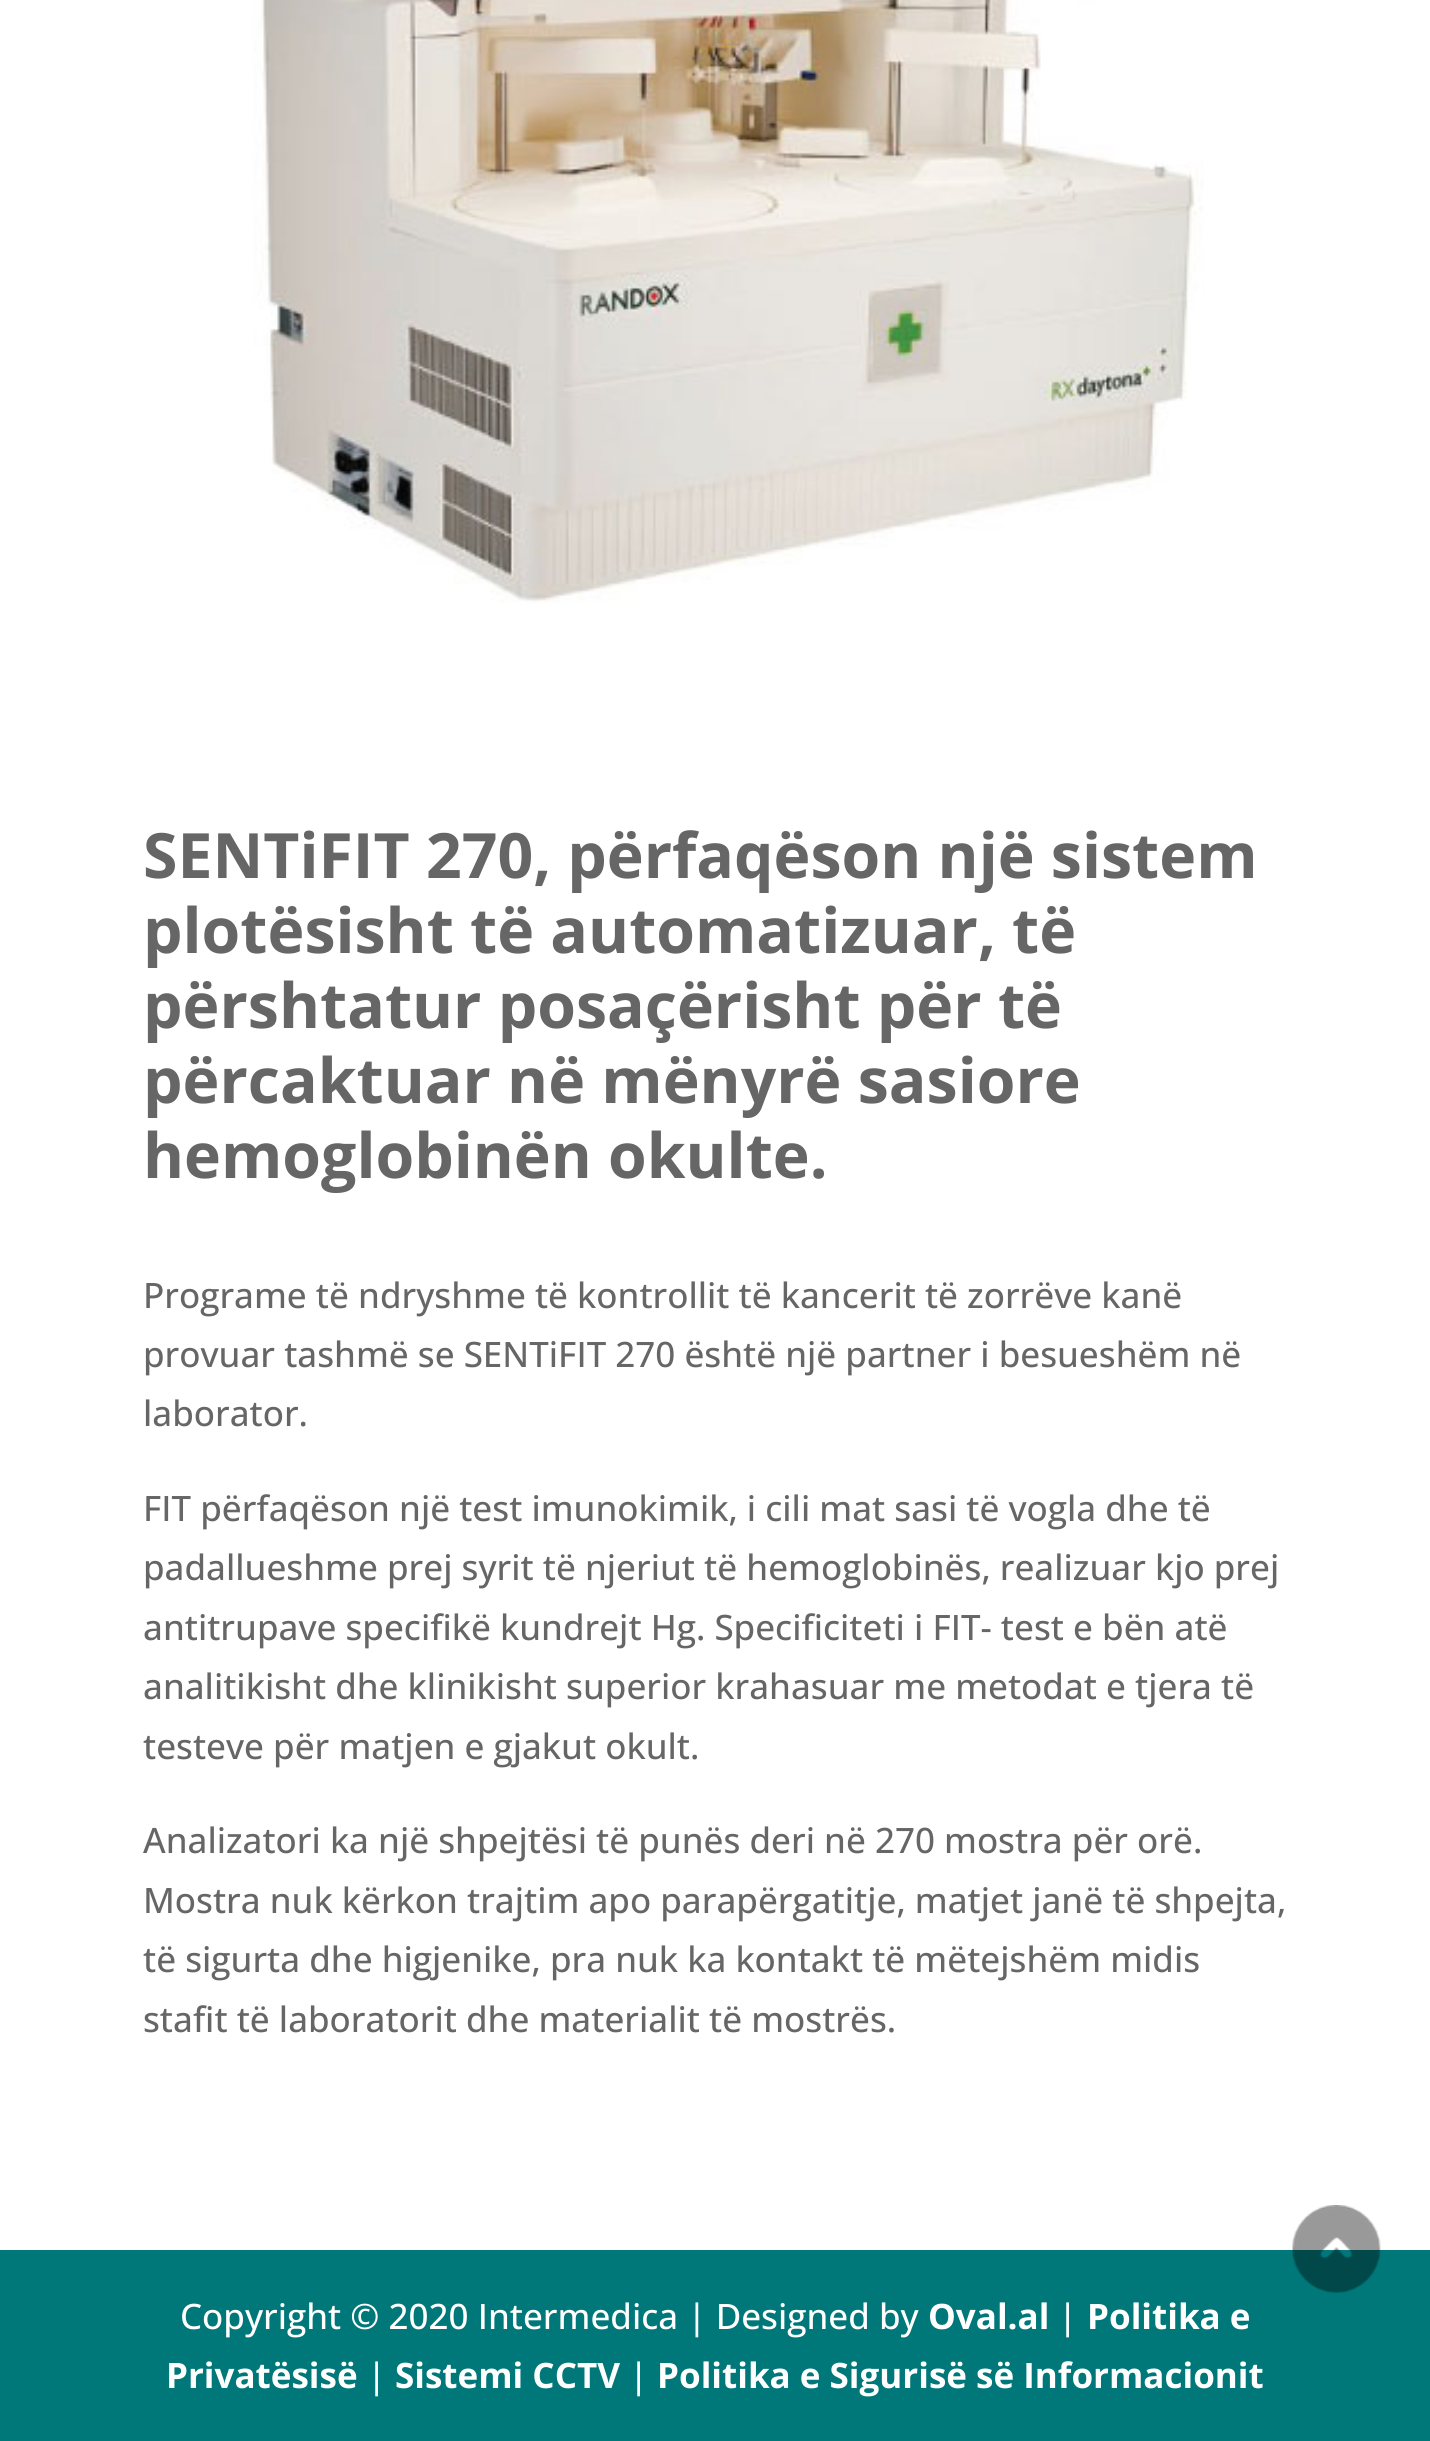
import math
import cairo

surface = cairo.ImageSurface(cairo.Format.RGB24, 1430, 2441)
ctx = cairo.Context(surface)
options = cairo.FontOptions()
options.set_hint_metrics(cairo.HintMetrics.OFF)
options.set_hint_style(cairo.HintStyle.NONE)
ctx.set_font_options(options)
ctx.set_miter_limit(4)


def ink(r, g, b):
    ctx.set_source_rgb(r / 255, g / 255, b / 255)


def write(x, y, s, family, size, color, bold=False, italic=False):
    ctx.select_font_face(family, cairo.FontSlant.ITALIC if italic else cairo.FontSlant.NORMAL, cairo.FontWeight.BOLD if bold else cairo.FontWeight.NORMAL)
    ctx.set_font_size(size)
    ink(*color)
    ctx.move_to(x, y)
    ctx.show_text(s)


def block(x, y, w, h, *color):
    ink(*color)
    ctx.rectangle(x, y, w, h)
    ctx.fill()


def paste(path, x, y, w, h):
    ctx.save()
    ctx.set_source_surface(cairo.ImageSurface.create_from_png(path), x, y)
    ctx.rectangle(x, y, w, h)
    ctx.fill()
    ctx.restore()


s1 = dict(family="Open Sans", size=62.5, color=(102, 102, 102), bold=True)
s2 = dict(family="Open Sans Medium", size=35, color=(102, 102, 102))
s3 = dict(family="Open Sans Medium", size=35, color=(255, 255, 255))
s4 = dict(family="Open Sans", size=35, color=(255, 255, 255), bold=True)

ink(255, 255, 255)
ctx.paint()
paste("pic1.png", 253, 0, 951, 603)
write(143, 878, "SENTiFIT 270, përfaqëson një sistem", **s1)
write(143, 953, "plotësisht të automatizuar, të", **s1)
write(143, 1028, "përshtatur posaçërisht për të", **s1)
write(143, 1103, "përcaktuar në mënyrë sasiore", **s1)
write(143, 1178, "hemoglobinën okulte.", **s1)
write(143, 1308, "Programe të ndryshme të kontrollit të kancerit të zorrëve kanë", **s2)
write(143, 1367, "provuar tashmë se SENTiFIT 270 është një partner i besueshëm në", **s2)
write(143, 1426, "laborator.", **s2)
write(143, 1521, "FIT përfaqëson një test imunokimik, i cili mat sasi të vogla dhe të", **s2)
write(143, 1580, "padallueshme prej syrit të njeriut të hemoglobinës, realizuar kjo prej", **s2)
write(143, 1640, "antitrupave specifikë kundrejt Hg. Specificiteti i FIT- test e bën atë", **s2)
write(143, 1699, "analitikisht dhe klinikisht superior krahasuar me metodat e tjera të", **s2)
write(143, 1759, "testeve për matjen e gjakut okult.", **s2)
write(143, 1853, "Analizatori ka një shpejtësi të punës deri në 270 mostra për orë.", **s2)
write(143, 1913, "Mostra nuk kërkon trajtim apo parapërgatitje, matjet janë të shpejta,", **s2)
write(143, 1972, "të sigurta dhe higjenike, pra nuk ka kontakt të mëtejshëm midis", **s2)
write(143, 2032, "stafit të laboratorit dhe materialit të mostrës.", **s2)
block(0, 2250, 1430, 191, 0, 120, 122)
write(180, 2329, "Copyright © 2020 Intermedica | Designed by", **s3)
write(928, 2329, "Oval.al", **s4)
write(1058, 2329, "|", **s3)
write(1087, 2329, "Politika e", **s4)
write(166, 2388, "Privatësisë", **s4)
write(367, 2388, "|", **s3)
write(395, 2388, "Sistemi CCTV", **s4)
write(629, 2388, "|", **s3)
write(657, 2388, "Politika e Sigurisë së Informacionit", **s4)
paste("pic2.png", 1292, 2205, 89, 88)
surface.write_to_png("screenshot.png")
